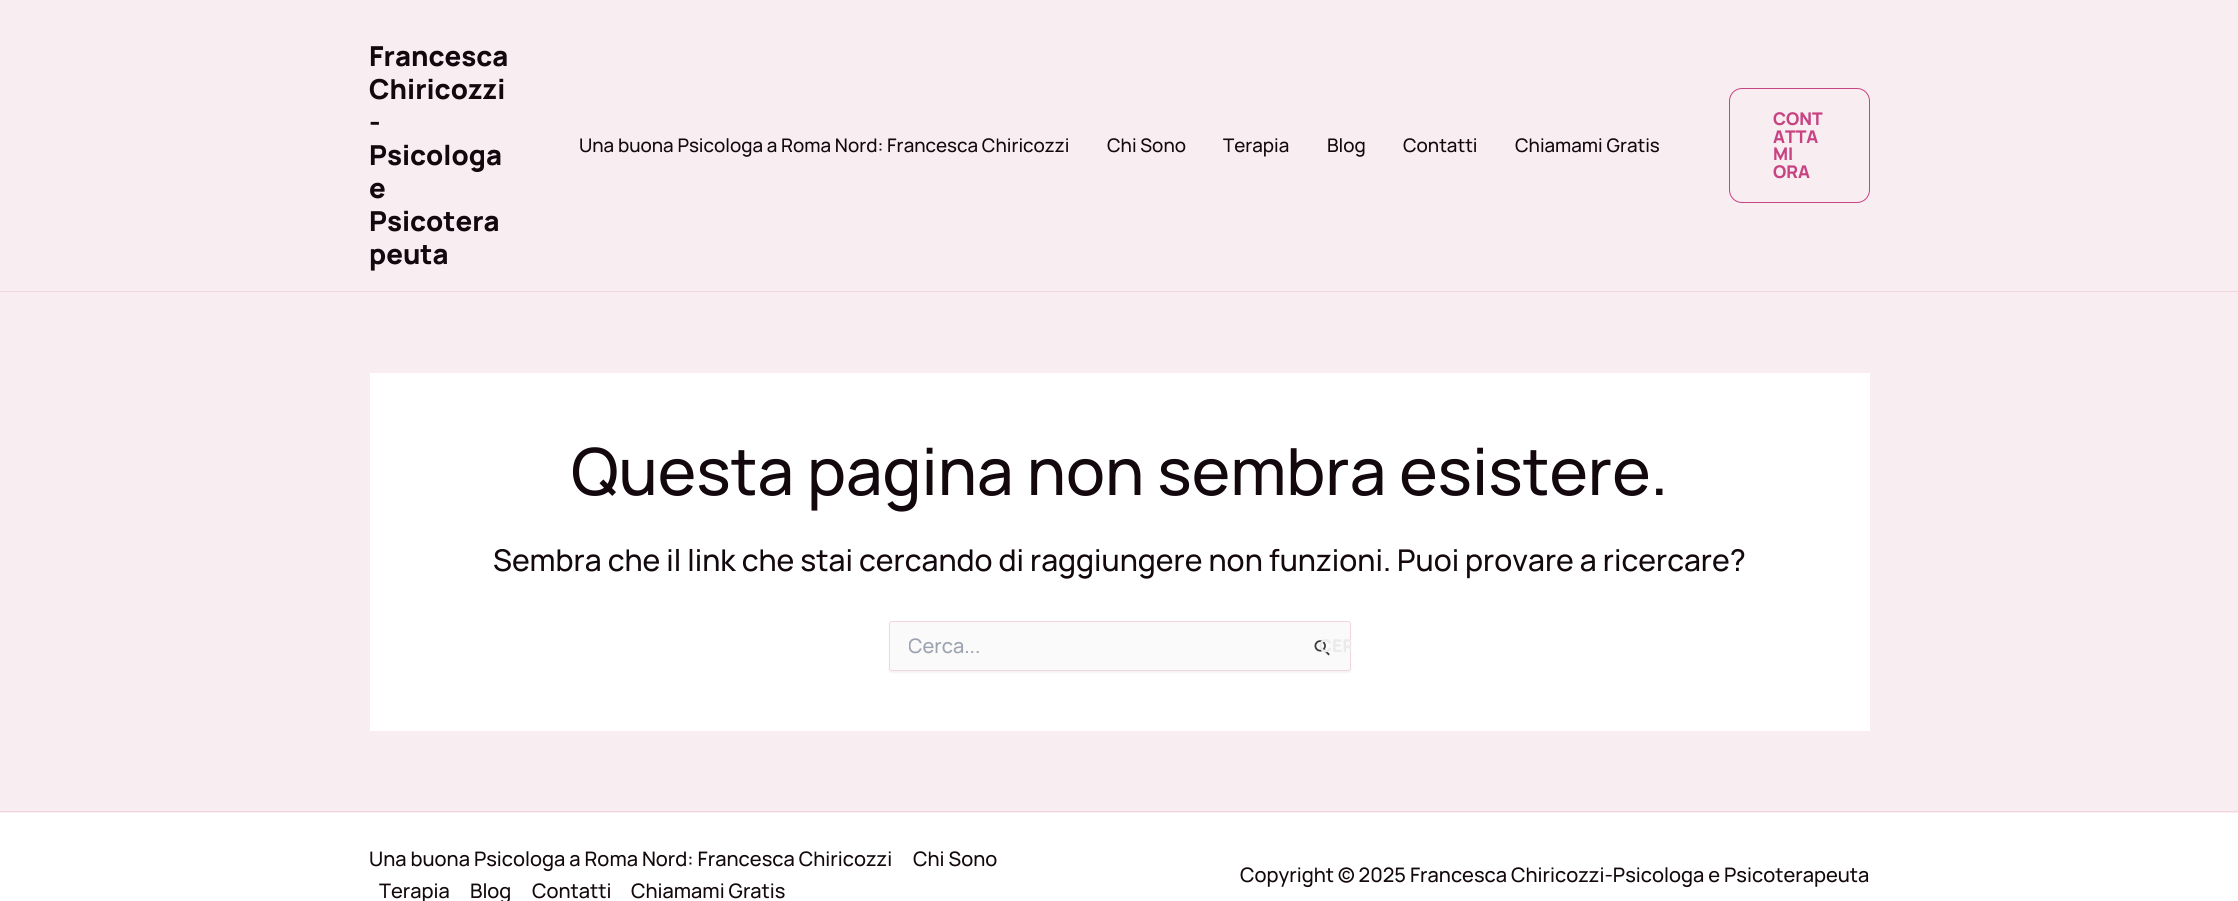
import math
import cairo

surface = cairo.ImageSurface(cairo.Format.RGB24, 2238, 901)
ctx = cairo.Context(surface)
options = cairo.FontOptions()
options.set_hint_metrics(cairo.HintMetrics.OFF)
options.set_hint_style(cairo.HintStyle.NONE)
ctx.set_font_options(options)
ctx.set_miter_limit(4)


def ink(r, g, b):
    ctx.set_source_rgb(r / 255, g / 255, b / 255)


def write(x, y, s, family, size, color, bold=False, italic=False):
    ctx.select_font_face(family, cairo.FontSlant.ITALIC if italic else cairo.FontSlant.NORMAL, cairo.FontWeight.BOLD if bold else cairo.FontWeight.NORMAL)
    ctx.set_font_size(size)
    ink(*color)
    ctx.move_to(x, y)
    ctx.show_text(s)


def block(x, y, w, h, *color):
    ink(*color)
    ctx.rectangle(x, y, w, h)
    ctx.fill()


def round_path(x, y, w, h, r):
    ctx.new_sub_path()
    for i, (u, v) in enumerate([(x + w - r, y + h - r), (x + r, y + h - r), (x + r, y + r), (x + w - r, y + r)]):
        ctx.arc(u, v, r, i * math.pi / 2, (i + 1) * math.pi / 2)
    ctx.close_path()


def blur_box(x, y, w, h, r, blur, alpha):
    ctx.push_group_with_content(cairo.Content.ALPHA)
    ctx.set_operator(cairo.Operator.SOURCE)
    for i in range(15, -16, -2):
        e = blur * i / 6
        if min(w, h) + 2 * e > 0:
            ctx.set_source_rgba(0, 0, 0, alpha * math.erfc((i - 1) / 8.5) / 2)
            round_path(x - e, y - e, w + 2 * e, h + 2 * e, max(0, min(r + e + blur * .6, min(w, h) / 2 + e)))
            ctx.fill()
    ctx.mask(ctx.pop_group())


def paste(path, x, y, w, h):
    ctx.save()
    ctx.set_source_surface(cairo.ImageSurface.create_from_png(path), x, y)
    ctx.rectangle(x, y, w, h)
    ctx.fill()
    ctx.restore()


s1 = dict(family="Manrope ExtraBold", size=27.5, color=(18, 8, 13))
s2 = dict(family="Manrope Medium", size=18.75, color=(18, 8, 13))
s3 = dict(family="Manrope ExtraBold", size=17.5, color=(199, 67, 130))
s4 = dict(family="Manrope Medium", size=65, color=(18, 8, 13))
s5 = dict(family="Manrope Medium", size=30, color=(18, 8, 13))
s6 = dict(family="Manrope Medium", size=20, color=(156, 163, 175))
s7 = dict(family="Manrope ExtraBold", size=17.5, color=(235, 233, 234))
s8 = dict(family="Manrope Medium", size=20, color=(18, 8, 13))

ink(248, 238, 242)
ctx.paint()
block(0, 291, 2238, 1, 243, 212, 225)
write(369, 66, "Francesca", **s1)
write(369, 99, "Chiricozzi", **s1)
write(369, 132, "-", **s1)
write(369, 165, "Psicologa", **s1)
write(369, 198, "e", **s1)
write(369, 231, "Psicotera", **s1)
write(369, 264, "peuta", **s1)
write(579, 152, "Una buona Psicologa a Roma Nord: Francesca Chiricozzi", **s2)
write(1107, 152, "Chi Sono", **s2)
write(1223, 152, "Terapia", **s2)
write(1327, 152, "Blog", **s2)
write(1403, 152, "Contatti", **s2)
write(1515, 152, "Chiamami Gratis", **s2)
round_path(1729.5, 88.5, 140, 114, 12.5)
ink(199, 67, 130)
ctx.set_line_width(1)
ctx.stroke()
write(1773, 125, "CONT", **s3)
write(1773, 143, "ATTA", **s3)
write(1773, 160, "MI", **s3)
write(1773, 178, "ORA", **s3)
block(370, 373, 1500, 358, 255, 255, 255)
write(571, 495, "Questa pagina non sembra esistere.", **s4)
write(493, 571, "Sembra che il link che stai cercando di raggiungere non funzioni. Puoi provare a ricercare?", **s5)
ink(0, 0, 0)
blur_box(889, 623, 462, 50, 2.5, 1, 0.05)
ink(250, 250, 250)
round_path(889.5, 621.5, 461, 49, 2)
ctx.fill_preserve()
ink(243, 212, 225)
ctx.stroke()
ctx.save()
ctx.rectangle(909, 633, 380, 27)
ctx.clip()
write(908, 653, "Cerca...", **s6)
ctx.restore()
paste("pic1.png", 1314, 640, 16, 16)
ctx.save()
round_path(1295, 621, 56, 50, 2.5)
ctx.clip()
write(1319, 652, "CER", **s7)
ctx.restore()
block(0, 813, 2238, 88, 255, 255, 255)
block(0, 811, 2238, 1, 243, 212, 225)
write(369, 866, "Una buona Psicologa a Roma Nord: Francesca Chiricozzi", **s8)
write(913, 866, "Chi Sono", **s8)
write(379, 898, "Terapia", **s8)
write(470, 898, "Blog", **s8)
write(532, 898, "Contatti", **s8)
write(631, 898, "Chiamami Gratis", **s8)
write(1240, 882, "Copyright © 2025 Francesca Chiricozzi-Psicologa e Psicoterapeuta", **s8)
surface.write_to_png("screenshot.png")
